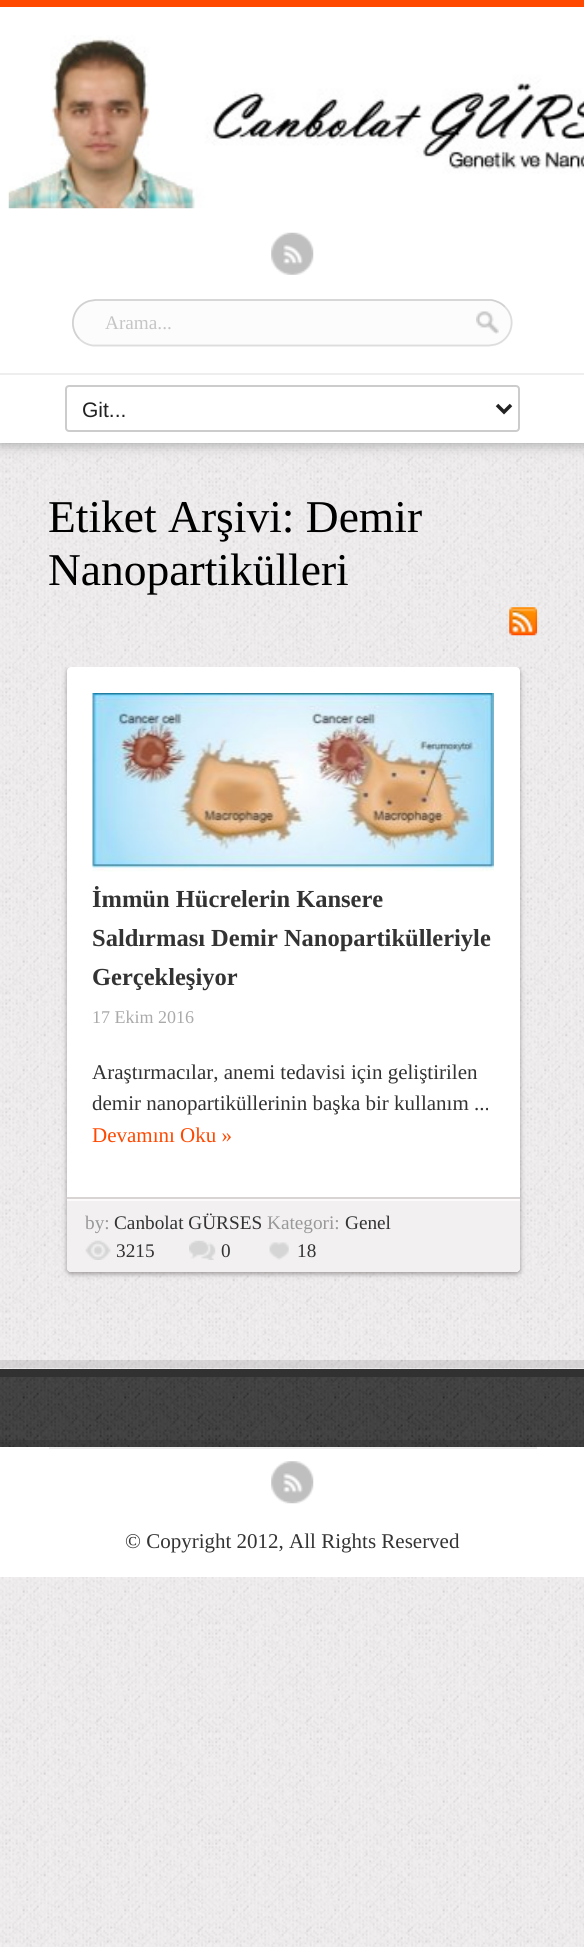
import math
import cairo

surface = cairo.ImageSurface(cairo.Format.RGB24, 584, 1947)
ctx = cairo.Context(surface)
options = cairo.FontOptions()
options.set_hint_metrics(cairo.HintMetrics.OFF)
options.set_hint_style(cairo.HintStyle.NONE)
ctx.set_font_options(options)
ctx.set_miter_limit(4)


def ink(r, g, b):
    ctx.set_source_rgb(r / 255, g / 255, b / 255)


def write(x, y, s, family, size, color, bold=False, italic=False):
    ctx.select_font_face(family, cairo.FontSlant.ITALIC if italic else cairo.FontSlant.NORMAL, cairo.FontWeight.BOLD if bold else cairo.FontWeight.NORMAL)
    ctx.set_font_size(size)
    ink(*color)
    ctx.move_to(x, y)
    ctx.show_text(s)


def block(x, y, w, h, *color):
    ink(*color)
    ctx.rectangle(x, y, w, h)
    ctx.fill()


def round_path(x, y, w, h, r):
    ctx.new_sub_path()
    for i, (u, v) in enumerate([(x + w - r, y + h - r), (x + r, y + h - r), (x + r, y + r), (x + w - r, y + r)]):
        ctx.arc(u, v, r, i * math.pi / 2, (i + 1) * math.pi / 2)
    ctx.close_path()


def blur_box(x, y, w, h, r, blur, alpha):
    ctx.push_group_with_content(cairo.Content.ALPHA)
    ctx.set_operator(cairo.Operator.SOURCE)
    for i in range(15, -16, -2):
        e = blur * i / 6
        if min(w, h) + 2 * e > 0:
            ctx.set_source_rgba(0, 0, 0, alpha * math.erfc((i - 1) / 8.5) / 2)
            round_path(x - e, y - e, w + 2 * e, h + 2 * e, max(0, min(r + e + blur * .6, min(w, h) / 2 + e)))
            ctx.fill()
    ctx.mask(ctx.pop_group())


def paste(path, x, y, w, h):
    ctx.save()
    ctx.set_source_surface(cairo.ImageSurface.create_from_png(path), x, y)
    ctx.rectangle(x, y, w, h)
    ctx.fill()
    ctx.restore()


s1 = dict(family="Liberation Serif", size=19.25, color=(197, 197, 197))
s2 = dict(family="Liberation Sans", size=21, color=(34, 34, 34))
s3 = dict(family="Liberation Serif", size=45.5, color=(0, 0, 0))
s4 = dict(family="Liberation Serif", size=24.5, color=(51, 51, 51), bold=True)
s5 = dict(family="Liberation Serif", size=18, color=(170, 170, 170))
s6 = dict(family="Liberation Serif", size=21, color=(51, 51, 51))
s7 = dict(family="Liberation Serif", size=21, color=(255, 72, 0))
s8 = dict(family="Liberation Serif", size=19.25, color=(153, 153, 153))
s9 = dict(family="Liberation Serif", size=19.25, color=(51, 51, 51))

ink(245, 243, 244)
ctx.paint()
paste("pic1.png", 0, 443, 584, 1504)
ink(153, 153, 153)
blur_box(0, 0, 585, 443, 0, 7, 1)
block(0, 7, 584, 436, 255, 255, 255)
block(0, 0, 584, 7, 255, 72, 0)
paste("pic2.png", 8, 35, 576, 174)
paste("pic3.png", 271, 232, 43, 43)
ink(252, 252, 252)
round_path(72, 299, 441, 48, 24)
ctx.fill()
ctx.new_path()
ctx.move_to(505, 307)
ctx.curve_to(517, 318.5, 512, 339.5, 495.5, 344.5)
ctx.line_to(489, 345.5)
ctx.line_to(93, 345.5)
ctx.curve_to(88, 345, 83, 342.5, 79.5, 339)
ink(221, 221, 221)
ctx.set_line_width(1.8)
ctx.stroke()
ctx.new_path()
ctx.move_to(79.5, 339)
ctx.curve_to(67.5, 327, 72.5, 306, 89, 301)
ctx.line_to(95.5, 300)
ctx.line_to(491.5, 300)
ctx.curve_to(496.5, 301, 501.5, 303, 505, 307)
ink(209, 209, 209)
ctx.stroke()
write(105, 329, "Arama...", **s1)
paste("pic4.png", 476, 311, 23, 23)
block(0, 373, 584, 2, 238, 238, 238)
round_path(66, 386, 453, 45, 3)
ink(204, 204, 204)
ctx.set_line_width(2)
ctx.stroke()
ctx.new_path()
ctx.move_to(497, 405)
ctx.line_to(504, 412)
ctx.line_to(511, 405)
ink(34, 34, 34)
ctx.set_line_width(3.5)
ctx.stroke()
write(82, 417, "Git...", **s2)
write(48, 532, "Etiket Arşivi: Demir", **s3)
write(48, 585, "Nanopartikülleri", **s3)
paste("pic5.png", 509, 607, 29, 29)
ctx.save()
ctx.rectangle(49, 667, 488, 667)
ctx.clip()
ink(34, 25, 25)
blur_box(67, 669, 453, 605, 4, 2.5, 0.4)
ctx.restore()
ink(255, 255, 255)
round_path(67, 667, 453, 605, 4)
ctx.fill()
paste("pic6.png", 92, 693, 402, 179)
write(92, 907, "İmmün Hücrelerin Kansere", **s4)
write(92, 946, "Saldırması Demir Nanopartikülleriyle", **s4)
write(92, 985, "Gerçekleşiyor", **s4)
write(92, 1023, "17 Ekim 2016", **s5)
write(92, 1079, "Araştırmacılar, anemi tedavisi için geliştirilen", **s6)
write(92, 1110, "demir nanopartiküllerinin başka bir kullanım ...", **s6)
write(92, 1142, "Devamını Oku »", **s7)
ink(242, 240, 240)
ctx.new_path()
ctx.move_to(67, 1197)
ctx.line_to(520, 1197)
ctx.line_to(520, 1268)
ctx.curve_to(520, 1270, 518, 1272, 516, 1272)
ctx.line_to(71, 1272)
ctx.curve_to(69, 1272, 67, 1270, 67, 1268)
ctx.close_path()
ctx.fill()
block(67, 1199, 453, 2, 252, 250, 250)
block(67, 1197, 453, 2, 217, 212, 212)
write(85, 1229, "by:", **s8)
write(114, 1229, "Canbolat GÜRSES", **s9)
write(267, 1229, "Kategori:", **s8)
write(345, 1229, "Genel", **s9)
paste("pic7.png", 85, 1240, 26, 20)
write(116, 1257, "3215", **s9)
paste("pic8.png", 189, 1240, 27, 20)
write(221, 1257, "0", **s9)
paste("pic9.png", 269, 1242, 20, 18)
write(297, 1257, "18", **s9)
ctx.set_source_rgba(0, 0, 0, 0.1)
ctx.new_path()
ctx.move_to(0, 1360)
ctx.line_to(0, 1368)
ctx.line_to(584, 1368)
ctx.line_to(584, 1439)
ctx.line_to(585, 1439)
ctx.line_to(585, 1360)
ctx.close_path()
ctx.fill()
block(0, 1377, 584, 70, 17, 17, 17)
paste("pic10.png", 0, 1368, 584, 79)
block(0, 1369, 584, 8, 49, 49, 49)
ctx.set_source_rgba(0, 0, 0, 0.1)
ctx.new_path()
ctx.move_to(0, 1440)
ctx.line_to(0, 1447)
ctx.line_to(584, 1447)
ctx.line_to(584, 1570)
ctx.line_to(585, 1570)
ctx.line_to(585, 1440)
ctx.close_path()
ctx.fill()
block(0, 1447, 584, 130, 255, 255, 255)
block(49, 1447, 488, 2, 238, 238, 238)
paste("pic11.png", 271, 1461, 43, 43)
write(125, 1548, "© Copyright 2012, All Rights Reserved", **s6)
surface.write_to_png("screenshot.png")
